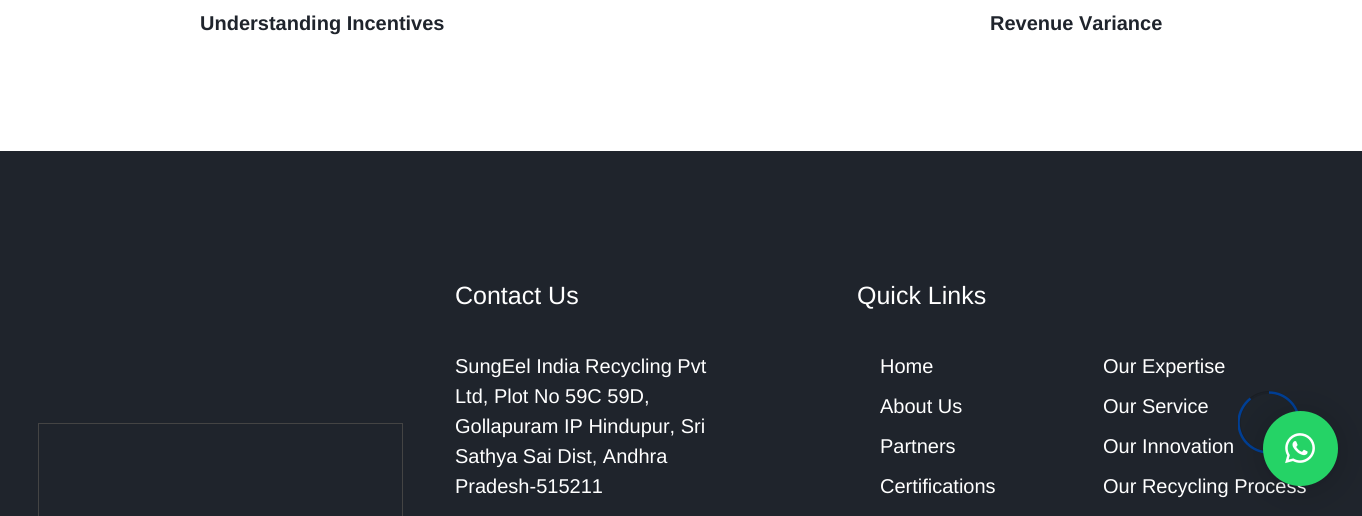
import math
import cairo

surface = cairo.ImageSurface(cairo.Format.RGB24, 1362, 516)
ctx = cairo.Context(surface)
options = cairo.FontOptions()
options.set_hint_metrics(cairo.HintMetrics.OFF)
options.set_hint_style(cairo.HintStyle.NONE)
ctx.set_font_options(options)
ctx.set_miter_limit(4)


def ink(r, g, b):
    ctx.set_source_rgb(r / 255, g / 255, b / 255)


def write(x, y, s, family, size, color, bold=False, italic=False):
    ctx.select_font_face(family, cairo.FontSlant.ITALIC if italic else cairo.FontSlant.NORMAL, cairo.FontWeight.BOLD if bold else cairo.FontWeight.NORMAL)
    ctx.set_font_size(size)
    ink(*color)
    ctx.move_to(x, y)
    ctx.show_text(s)


def block(x, y, w, h, *color):
    ink(*color)
    ctx.rectangle(x, y, w, h)
    ctx.fill()


def round_path(x, y, w, h, r):
    ctx.new_sub_path()
    for i, (u, v) in enumerate([(x + w - r, y + h - r), (x + r, y + h - r), (x + r, y + r), (x + w - r, y + r)]):
        ctx.arc(u, v, r, i * math.pi / 2, (i + 1) * math.pi / 2)
    ctx.close_path()


def blur_box(x, y, w, h, r, blur, alpha):
    ctx.push_group_with_content(cairo.Content.ALPHA)
    ctx.set_operator(cairo.Operator.SOURCE)
    for i in range(15, -16, -2):
        e = blur * i / 6
        if min(w, h) + 2 * e > 0:
            ctx.set_source_rgba(0, 0, 0, alpha * math.erfc((i - 1) / 8.5) / 2)
            round_path(x - e, y - e, w + 2 * e, h + 2 * e, max(0, min(r + e + blur * .6, min(w, h) / 2 + e)))
            ctx.fill()
    ctx.mask(ctx.pop_group())


def paste(path, x, y, w, h):
    ctx.save()
    ctx.set_source_surface(cairo.ImageSurface.create_from_png(path), x, y)
    ctx.rectangle(x, y, w, h)
    ctx.fill()
    ctx.restore()


s1 = dict(family="Liberation Sans", size=20, color=(31, 36, 44), bold=True)
s2 = dict(family="Liberation Sans", size=25, color=(255, 255, 255))
s3 = dict(family="Liberation Sans", size=20, color=(255, 255, 255))

ink(255, 255, 255)
ctx.paint()
write(200, 30, "Understanding Incentives", **s1)
write(990, 30, "Revenue Variance", **s1)
block(0, 151, 1362, 365, 31, 36, 44)
ctx.rectangle(38.5, 423.5, 364, 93)
ink(68, 68, 68)
ctx.set_line_width(1)
ctx.stroke()
write(455, 304, "Contact Us", **s2)
write(455, 373, "SungEel India Recycling Pvt", **s3)
write(455, 403, "Ltd, Plot No 59C 59D,", **s3)
write(455, 433, "Gollapuram IP Hindupur, Sri", **s3)
write(455, 463, "Sathya Sai Dist, Andhra", **s3)
write(455, 493, "Pradesh-515211", **s3)
write(857, 304, "Quick Links", **s2)
write(880, 373, "Home", **s3)
write(1103, 373, "Our Expertise", **s3)
write(880, 413, "About Us", **s3)
write(1103, 413, "Our Service", **s3)
write(880, 453, "Partners", **s3)
write(1103, 453, "Our Innovation", **s3)
write(880, 493, "Certifications", **s3)
write(1103, 493, "Our Recycling Process", **s3)
round_path(1239.5, 392.5, 59, 60, 29.5)
ink(25, 29, 35)
ctx.set_line_width(3)
ctx.stroke()
ctx.set_source_rgba(0.122, 0.141, 0.173, 0.5)
ctx.new_path()
ctx.move_to(1269, 392)
ctx.curve_to(1285, 392, 1299, 406, 1299, 422)
ctx.curve_to(1299, 439, 1285, 453, 1269, 453)
ctx.curve_to(1252, 453, 1239, 439, 1239, 422)
ctx.curve_to(1239, 406, 1252, 392, 1269, 392)
ctx.fill()
ctx.save()
ctx.rectangle(1238, 391, 62, 63)
ctx.clip()
ctx.new_path()
ctx.move_to(1269, 392.5)
ctx.curve_to(1285.5, 392.5, 1299, 406, 1299, 422.5)
ctx.curve_to(1299, 439, 1285.5, 452.5, 1269, 452.5)
ctx.curve_to(1252, 452.5, 1238.5, 439, 1238.5, 422.5)
ctx.curve_to(1238.5, 413, 1243.5, 404, 1250.5, 398.5)
ink(0, 63, 150)
ctx.set_line_width(2.5)
ctx.stroke()
ctx.restore()
ink(0, 0, 0)
blur_box(1263, 414, 75, 75, 37.5, 20, 0.16)
blur_box(1263, 413, 75, 75, 37.5, 4, 0.06)
ink(37, 211, 102)
ctx.arc(1300.5, 448.5, 37.5, 0, 2 * math.pi)
ctx.fill()
paste("pic1.png", 1285, 433, 30, 31)
surface.write_to_png("screenshot.png")
